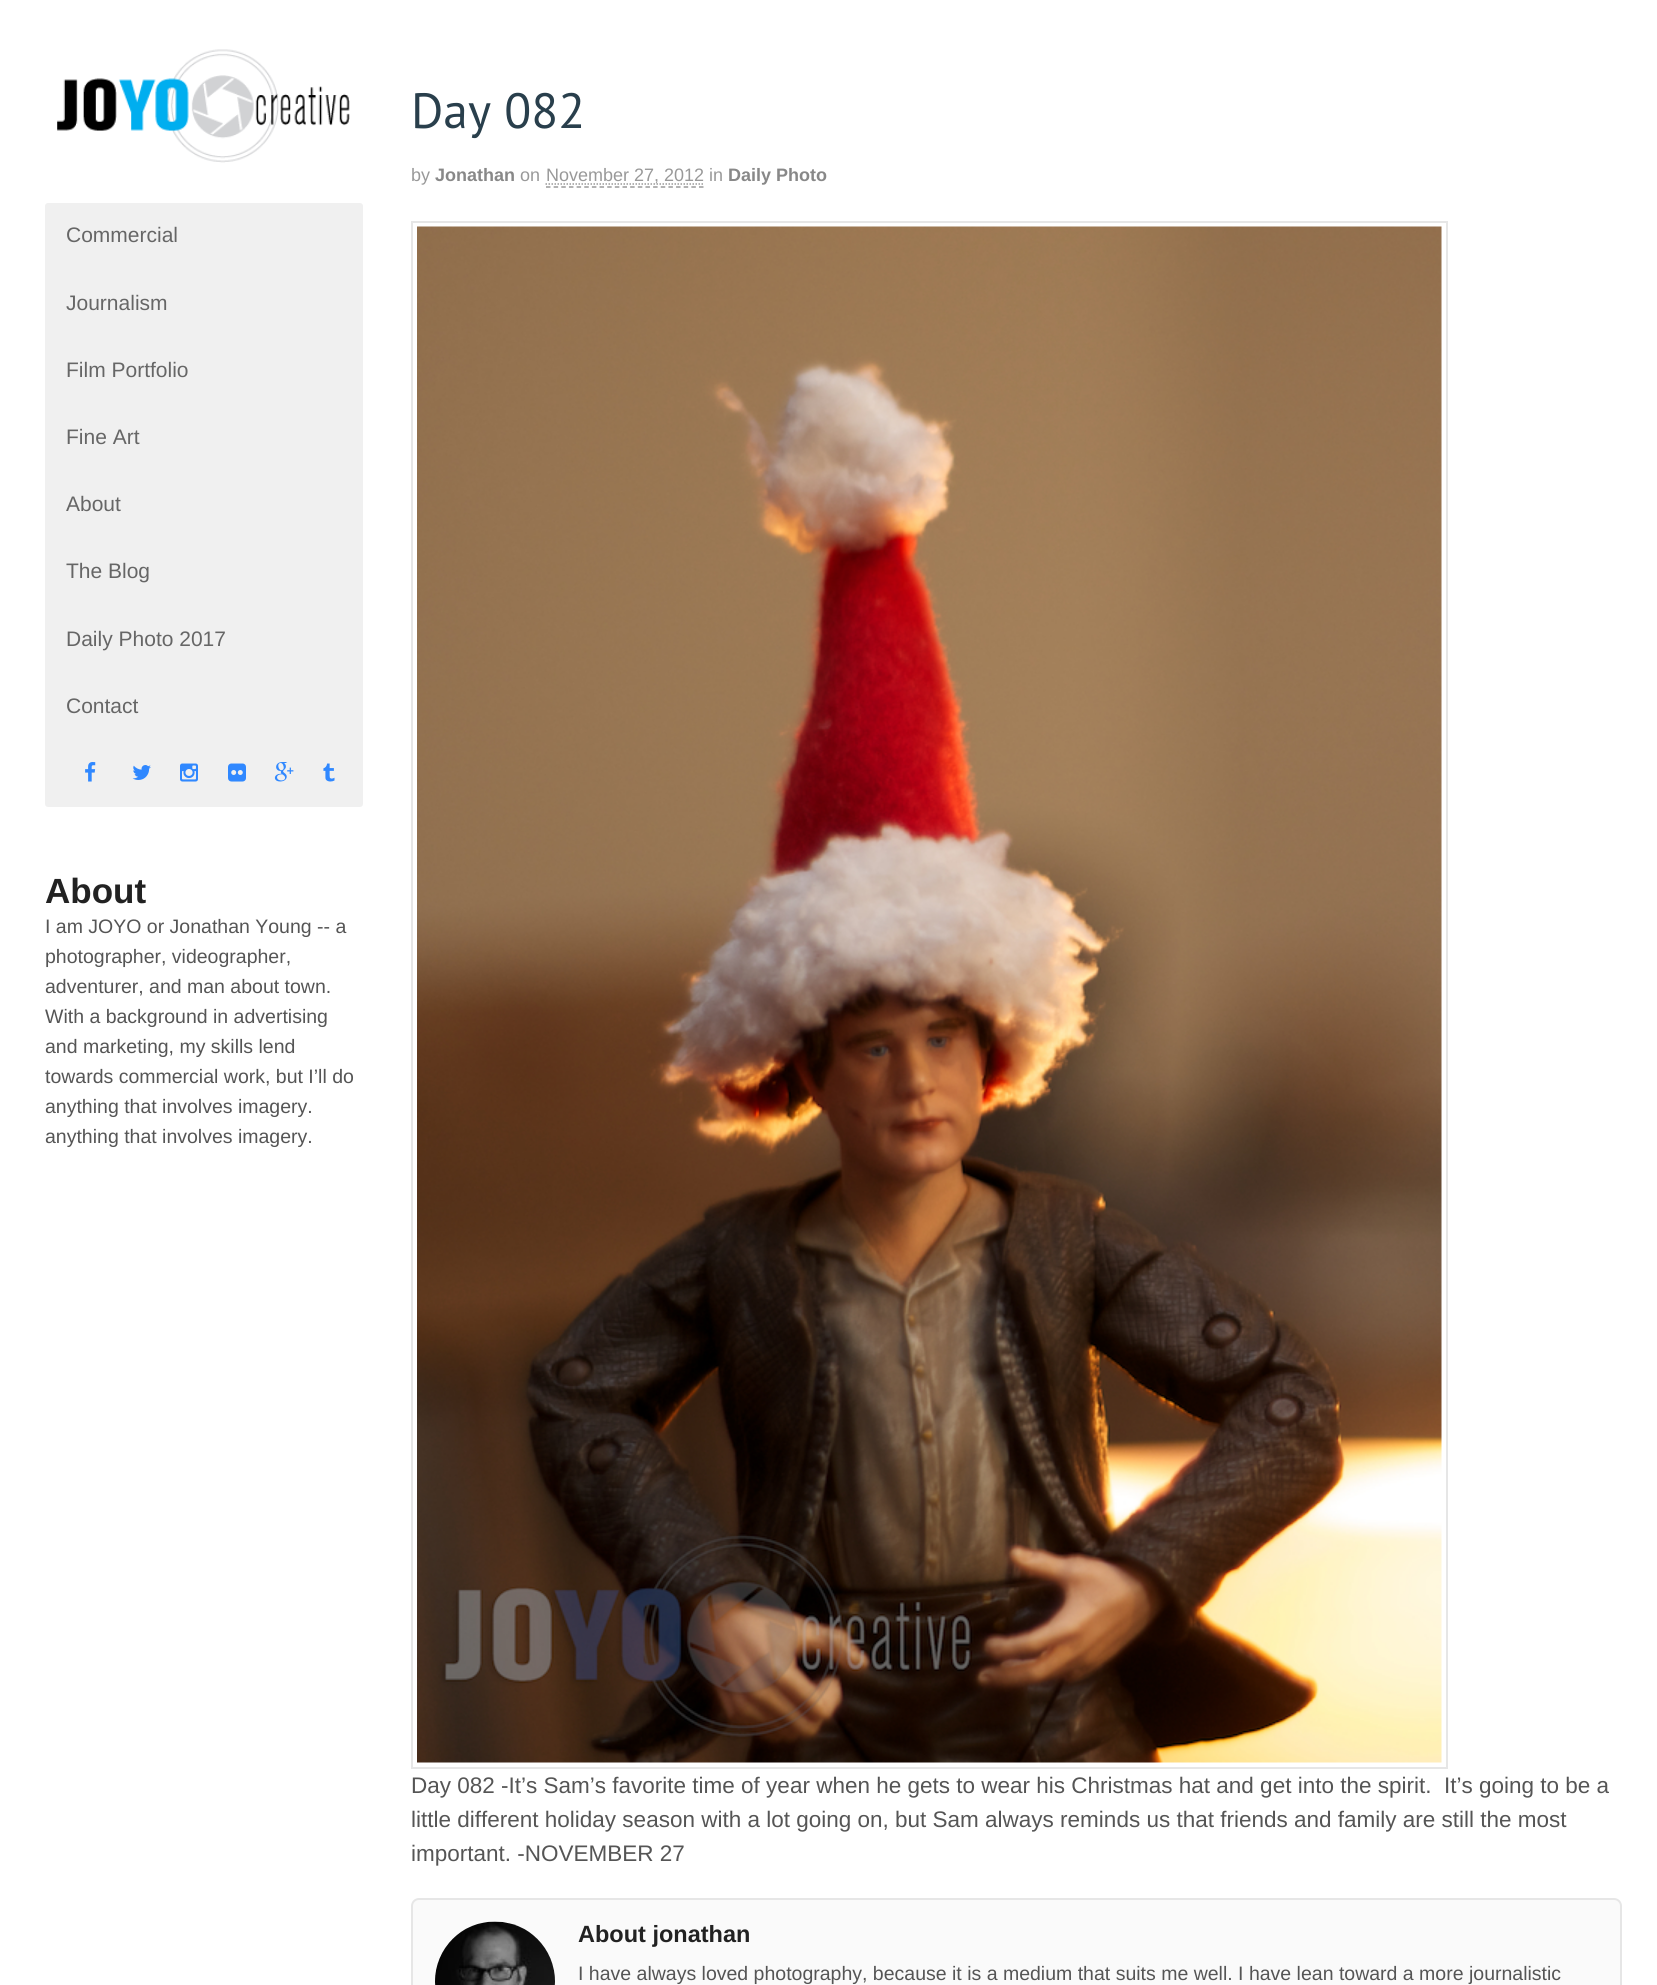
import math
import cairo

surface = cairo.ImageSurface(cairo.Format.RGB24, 1657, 1985)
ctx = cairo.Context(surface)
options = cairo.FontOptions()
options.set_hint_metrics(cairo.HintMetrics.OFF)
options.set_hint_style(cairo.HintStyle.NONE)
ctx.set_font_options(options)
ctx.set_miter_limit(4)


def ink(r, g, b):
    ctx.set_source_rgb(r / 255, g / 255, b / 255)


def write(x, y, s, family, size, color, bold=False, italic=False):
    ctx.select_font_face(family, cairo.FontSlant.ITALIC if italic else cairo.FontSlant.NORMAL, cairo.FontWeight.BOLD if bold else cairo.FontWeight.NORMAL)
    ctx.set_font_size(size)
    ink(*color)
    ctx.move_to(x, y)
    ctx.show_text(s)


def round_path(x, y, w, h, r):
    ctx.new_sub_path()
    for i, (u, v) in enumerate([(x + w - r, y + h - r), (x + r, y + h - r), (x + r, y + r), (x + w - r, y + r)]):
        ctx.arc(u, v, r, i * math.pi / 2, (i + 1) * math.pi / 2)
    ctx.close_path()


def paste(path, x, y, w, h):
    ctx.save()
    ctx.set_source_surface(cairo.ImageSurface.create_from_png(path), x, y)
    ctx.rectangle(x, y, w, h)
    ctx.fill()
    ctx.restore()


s1 = dict(family="Liberation Sans", size=21, color=(102, 102, 102))
s2 = dict(family="Liberation Sans", size=35, color=(34, 34, 34), bold=True)
s3 = dict(family="Liberation Sans", size=19.5, color=(85, 85, 85))
s4 = dict(family="PT Sans", size=49.5, color=(41, 63, 76))
s5 = dict(family="Liberation Sans", size=18, color=(153, 153, 153))
s6 = dict(family="Liberation Sans", size=18, color=(136, 136, 136), bold=True)
s7 = dict(family="Liberation Sans", size=22.5, color=(85, 85, 85))
s8 = dict(family="Liberation Sans", size=23.5, color=(34, 34, 34), bold=True)

ink(255, 255, 255)
ctx.paint()
paste("pic1.png", 57, 49, 293, 114)
ink(240, 240, 240)
round_path(45, 203, 318, 604, 3)
ctx.fill()
write(66, 242, "Commercial", **s1)
write(66, 310, "Journalism", **s1)
write(66, 377, "Film Portfolio", **s1)
write(66, 444, "Fine Art", **s1)
write(66, 511, "About", **s1)
write(66, 578, "The Blog", **s1)
write(66, 646, "Daily Photo 2017", **s1)
write(66, 713, "Contact", **s1)
paste("pic2.png", 85, 762, 11, 20)
paste("pic3.png", 132, 765, 19, 15)
paste("pic4.png", 180, 763, 18, 19)
paste("pic5.png", 228, 763, 18, 19)
paste("pic6.png", 274, 762, 20, 20)
paste("pic7.png", 323, 763, 12, 19)
write(45, 903, "About", **s2)
write(45, 933, "I am JOYO or Jonathan Young -- a", **s3)
write(45, 963, "photographer, videographer,", **s3)
write(45, 993, "adventurer, and man about town.", **s3)
write(45, 1023, "With a background in advertising", **s3)
write(45, 1053, "and marketing, my skills lend", **s3)
write(45, 1083, "towards commercial work, but I’ll do", **s3)
write(45, 1113, "anything that involves imagery.", **s3)
write(45, 1143, "anything that involves imagery.", **s3)
write(411, 128, "Day 082", **s4)
write(411, 181, "by", **s5)
write(435, 181, "Jonathan", **s6)
write(520, 181, "on", **s5)
ctx.new_path()
ctx.move_to(545.5, 184)
ctx.line_to(703.5, 184)
ctx.set_line_width(1.5)
ctx.set_dash([1.5, 1.5])
ctx.stroke()
write(546, 181, "November 27, 2012 in", **s5)
ctx.new_path()
ctx.move_to(546, 187)
ctx.line_to(703.5, 187)
ctx.set_dash([4.5, 3.15])
ctx.stroke()
write(728, 181, "Daily Photo", **s6)
ctx.rectangle(412, 222, 1035, 1546)
ink(230, 230, 230)
ctx.set_line_width(2)
ctx.set_dash([])
ctx.stroke()
paste("pic8.png", 417, 226, 1025, 1537)
write(411, 1793, "Day 082 -It’s Sam’s favorite time of year when he gets to wear his Christmas hat and get into the spirit.  It’s going to be a", **s7)
write(411, 1827, "little different holiday season with a lot going on, but Sam always reminds us that friends and family are still the most", **s7)
write(411, 1861, "important. -NOVEMBER 27", **s7)
ink(250, 250, 250)
round_path(412, 1899, 1209, 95, 7)
ctx.fill_preserve()
ink(230, 230, 230)
ctx.stroke()
paste("pic9.png", 435, 1921, 120, 64)
write(578, 1942, "About jonathan", **s8)
write(578, 1980, "I have always loved photography, because it is a medium that suits me well. I have lean toward a more journalistic", **s3)
surface.write_to_png("screenshot.png")
